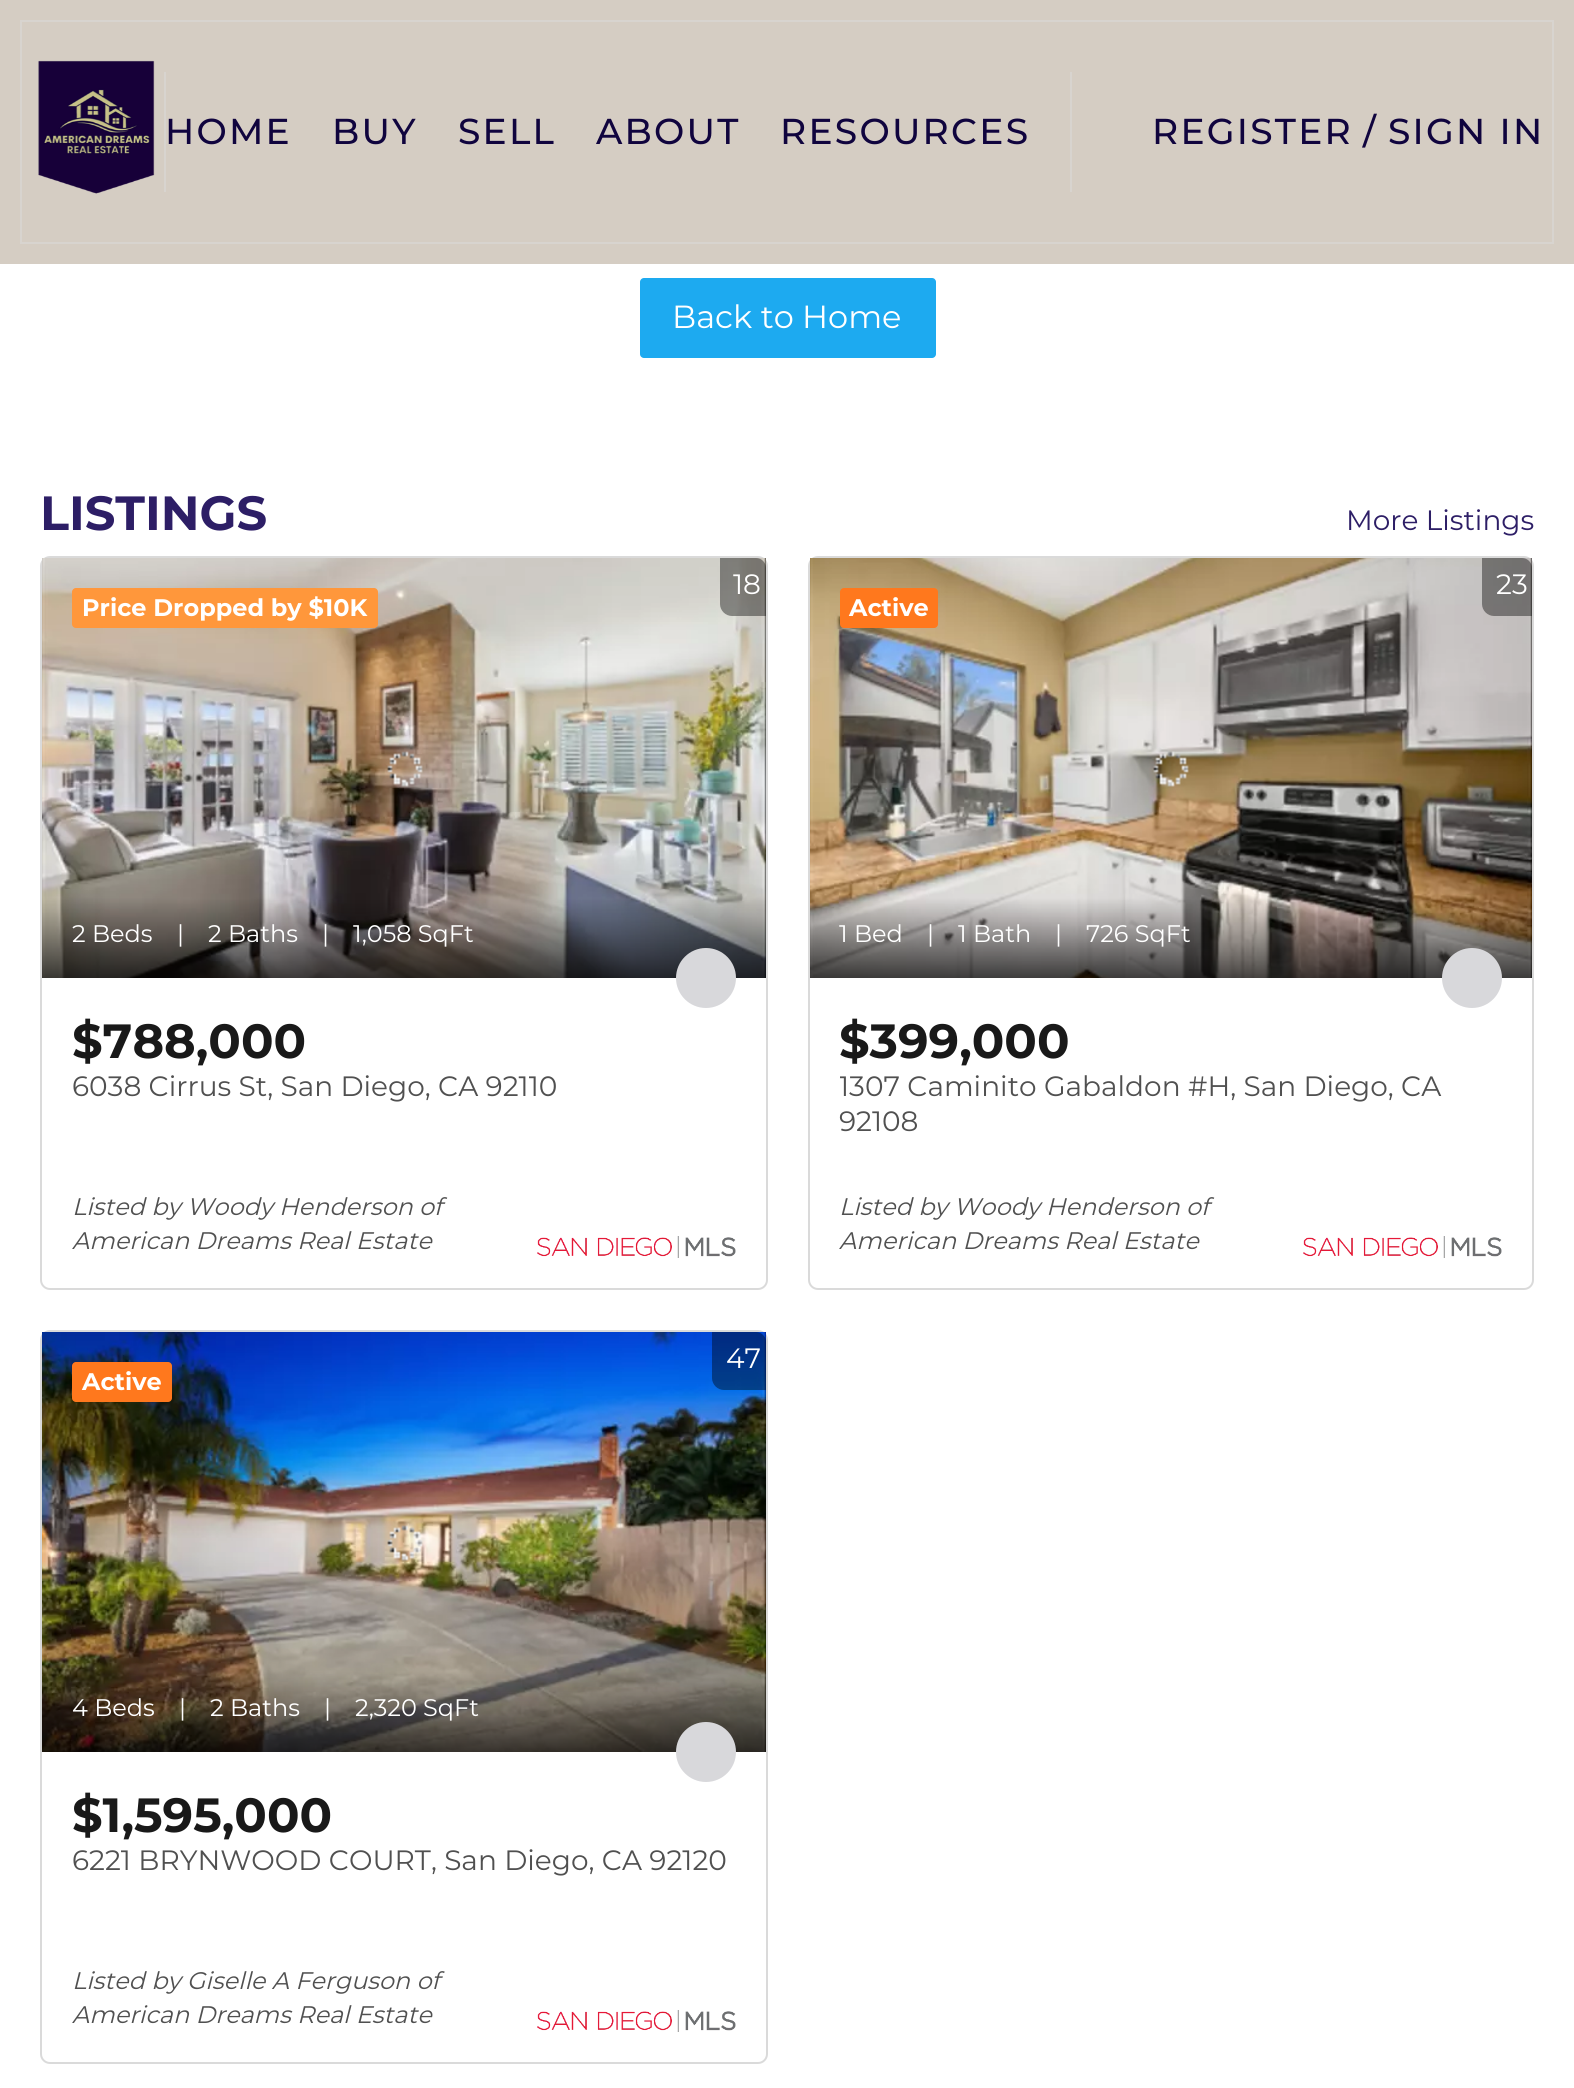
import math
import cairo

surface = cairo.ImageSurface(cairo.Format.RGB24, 1574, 2088)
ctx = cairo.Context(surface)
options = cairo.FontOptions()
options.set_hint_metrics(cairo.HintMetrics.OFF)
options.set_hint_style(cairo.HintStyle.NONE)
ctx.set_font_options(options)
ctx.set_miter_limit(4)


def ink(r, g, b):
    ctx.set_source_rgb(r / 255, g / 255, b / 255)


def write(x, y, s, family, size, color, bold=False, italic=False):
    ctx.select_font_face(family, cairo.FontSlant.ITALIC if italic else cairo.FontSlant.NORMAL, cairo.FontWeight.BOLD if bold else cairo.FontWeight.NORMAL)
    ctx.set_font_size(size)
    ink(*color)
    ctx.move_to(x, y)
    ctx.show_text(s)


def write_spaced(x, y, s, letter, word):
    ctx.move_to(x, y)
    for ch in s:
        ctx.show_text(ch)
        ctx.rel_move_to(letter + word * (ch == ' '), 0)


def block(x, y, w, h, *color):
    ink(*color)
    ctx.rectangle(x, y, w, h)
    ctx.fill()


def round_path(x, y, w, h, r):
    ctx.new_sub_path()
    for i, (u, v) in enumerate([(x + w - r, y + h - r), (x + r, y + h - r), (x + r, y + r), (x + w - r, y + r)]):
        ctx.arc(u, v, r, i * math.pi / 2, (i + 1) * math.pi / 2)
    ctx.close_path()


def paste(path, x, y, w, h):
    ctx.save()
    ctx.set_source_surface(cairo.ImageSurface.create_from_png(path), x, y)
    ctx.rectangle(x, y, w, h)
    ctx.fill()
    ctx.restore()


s1 = dict(family="Montserrat", size=32, color=(255, 255, 255))
s2 = dict(family="Montserrat", size=48, color=(45, 30, 102), bold=True)
s3 = dict(family="Montserrat", size=28, color=(45, 30, 102))
s4 = dict(family="Montserrat", size=28, color=(255, 255, 255))
s5 = dict(family="Montserrat", size=24, color=(255, 255, 255))
s6 = dict(family="Montserrat", size=24, color=(255, 255, 255), bold=True)
s7 = dict(family="Montserrat", size=48, color=(25, 25, 25), bold=True)
s8 = dict(family="Montserrat", size=28, color=(80, 80, 80))
s9 = dict(family="Montserrat", size=24, color=(80, 80, 80), italic=True)

ink(255, 255, 255)
ctx.paint()
block(0, 0, 1574, 264, 213, 205, 195)
ctx.rectangle(21, 21, 1532, 222)
ink(216, 212, 207)
ctx.stroke()
paste("pic1.png", 38, 60, 117, 134)
block(164, 72, 2, 120, 216, 212, 207)
ctx.select_font_face("Montserrat Medium")
ctx.set_font_size(36)
ink(16, 4, 62)
write_spaced(165, 144, "HOME", 2.25, 0)
write_spaced(332, 144, "BUY", 2.25, 0)
write_spaced(458, 144, "SELL", 2.25, 0)
write_spaced(596, 144, "ABOUT", 2.25, 0)
write_spaced(780, 144, "RESOURCES", 2.25, 0)
block(1070, 72, 2, 120, 216, 212, 207)
ink(16, 4, 62)
write_spaced(1152, 144, "REGISTER", 2.25, 0)
write_spaced(1363, 144, "/", 2.25, 0)
write_spaced(1388, 144, "SIGN IN", 2.25, 0)
ink(29, 170, 240)
round_path(640, 278, 296, 80, 4)
ctx.fill()
write(672, 328, "Back to Home", **s1)
write(40, 530, "LISTINGS", **s2)
write(1346, 530, "More Listings", **s3)
round_path(41, 557, 726, 732, 9)
ink(218, 218, 218)
ctx.stroke()
paste("pic2.png", 42, 558, 724, 420)
paste("pic3.png", 387, 751, 36, 36)
ctx.set_source_rgba(0, 0, 0, 0.4)
ctx.new_path()
ctx.move_to(720, 558)
ctx.line_to(756, 558)
ctx.curve_to(761.5, 558, 766, 562.5, 766, 568)
ctx.line_to(766, 616)
ctx.line_to(732, 616)
ctx.curve_to(725.5, 616, 720, 610.5, 720, 604)
ctx.close_path()
ctx.fill()
write(733, 594, "18", **s4)
write(72, 942, "2 Beds", **s5)
write(177, 942, "|", **s5)
write(208, 942, "2 Baths", **s5)
write(322, 942, "|", **s5)
write(353, 942, "1,058 SqFt", **s5)
ink(255, 151, 59)
round_path(72, 588, 306, 40, 4)
ctx.fill()
write(82, 616, "Price Dropped by $10K", **s6)
ink(216, 216, 219)
ctx.new_path()
ctx.arc(706, 978, 30, 0, 2 * math.pi)
ctx.fill()
write(72, 1058, "$788,000", **s7)
write(72, 1096, "6038 Cirrus St, San Diego, CA 92110", **s8)
write(72, 1215, "Listed by Woody Henderson of", **s9)
write(72, 1249, "American Dreams Real Estate", **s9)
paste("pic4.png", 537, 1236, 199, 22)
round_path(809, 557, 724, 732, 9)
ink(218, 218, 218)
ctx.stroke()
paste("pic5.png", 810, 558, 722, 420)
paste("pic6.png", 1153, 751, 36, 36)
ctx.set_source_rgba(0, 0, 0, 0.4)
ctx.new_path()
ctx.move_to(1482, 558)
ctx.line_to(1522, 558)
ctx.curve_to(1527.5, 558, 1532, 562.5, 1532, 568)
ctx.line_to(1532, 616)
ctx.line_to(1494, 616)
ctx.curve_to(1487.5, 616, 1482, 610.5, 1482, 604)
ctx.close_path()
ctx.fill()
write(1496, 594, "23", **s4)
write(839, 942, "1 Bed", **s5)
write(927, 942, "|", **s5)
write(958, 942, "1 Bath", **s5)
write(1055, 942, "|", **s5)
write(1086, 942, "726 SqFt", **s5)
ink(255, 120, 29)
round_path(840, 588, 98, 40, 4)
ctx.fill()
write(849, 616, "Active", **s6)
ink(216, 216, 219)
ctx.new_path()
ctx.arc(1472, 978, 30, 0, 2 * math.pi)
ctx.fill()
write(839, 1058, "$399,000", **s7)
ctx.save()
ctx.rectangle(840, 1070, 662, 70)
ctx.clip()
write(839, 1096, "1307 Caminito Gabaldon #H, San Diego, CA", **s8)
ctx.restore()
write(839, 1131, "92108", **s8)
write(839, 1215, "Listed by Woody Henderson of", **s9)
write(839, 1249, "American Dreams Real Estate", **s9)
paste("pic4.png", 1303, 1236, 199, 22)
round_path(41, 1331, 726, 732, 9)
ink(218, 218, 218)
ctx.stroke()
paste("pic7.png", 42, 1332, 724, 420)
paste("pic8.png", 387, 1525, 36, 36)
ctx.set_source_rgba(0, 0, 0, 0.4)
ctx.new_path()
ctx.move_to(712, 1332)
ctx.line_to(756, 1332)
ctx.curve_to(761.5, 1332, 766, 1336.5, 766, 1342)
ctx.line_to(766, 1390)
ctx.line_to(724, 1390)
ctx.curve_to(717.5, 1390, 712, 1384.5, 712, 1378)
ctx.close_path()
ctx.fill()
write(726, 1368, "47", **s4)
write(72, 1716, "4 Beds", **s5)
write(179, 1716, "|", **s5)
write(210, 1716, "2 Baths", **s5)
write(324, 1716, "|", **s5)
write(355, 1716, "2,320 SqFt", **s5)
ink(255, 120, 29)
round_path(72, 1362, 100, 40, 4)
ctx.fill()
write(82, 1390, "Active", **s6)
ink(216, 216, 219)
ctx.new_path()
ctx.arc(706, 1752, 30, 0, 2 * math.pi)
ctx.fill()
write(72, 1832, "$1,595,000", **s7)
write(72, 1870, "6221 BRYNWOOD COURT, San Diego, CA 92120", **s8)
write(72, 1989, "Listed by Giselle A Ferguson of", **s9)
write(72, 2023, "American Dreams Real Estate", **s9)
paste("pic9.png", 537, 2010, 199, 22)
surface.write_to_png("screenshot.png")
